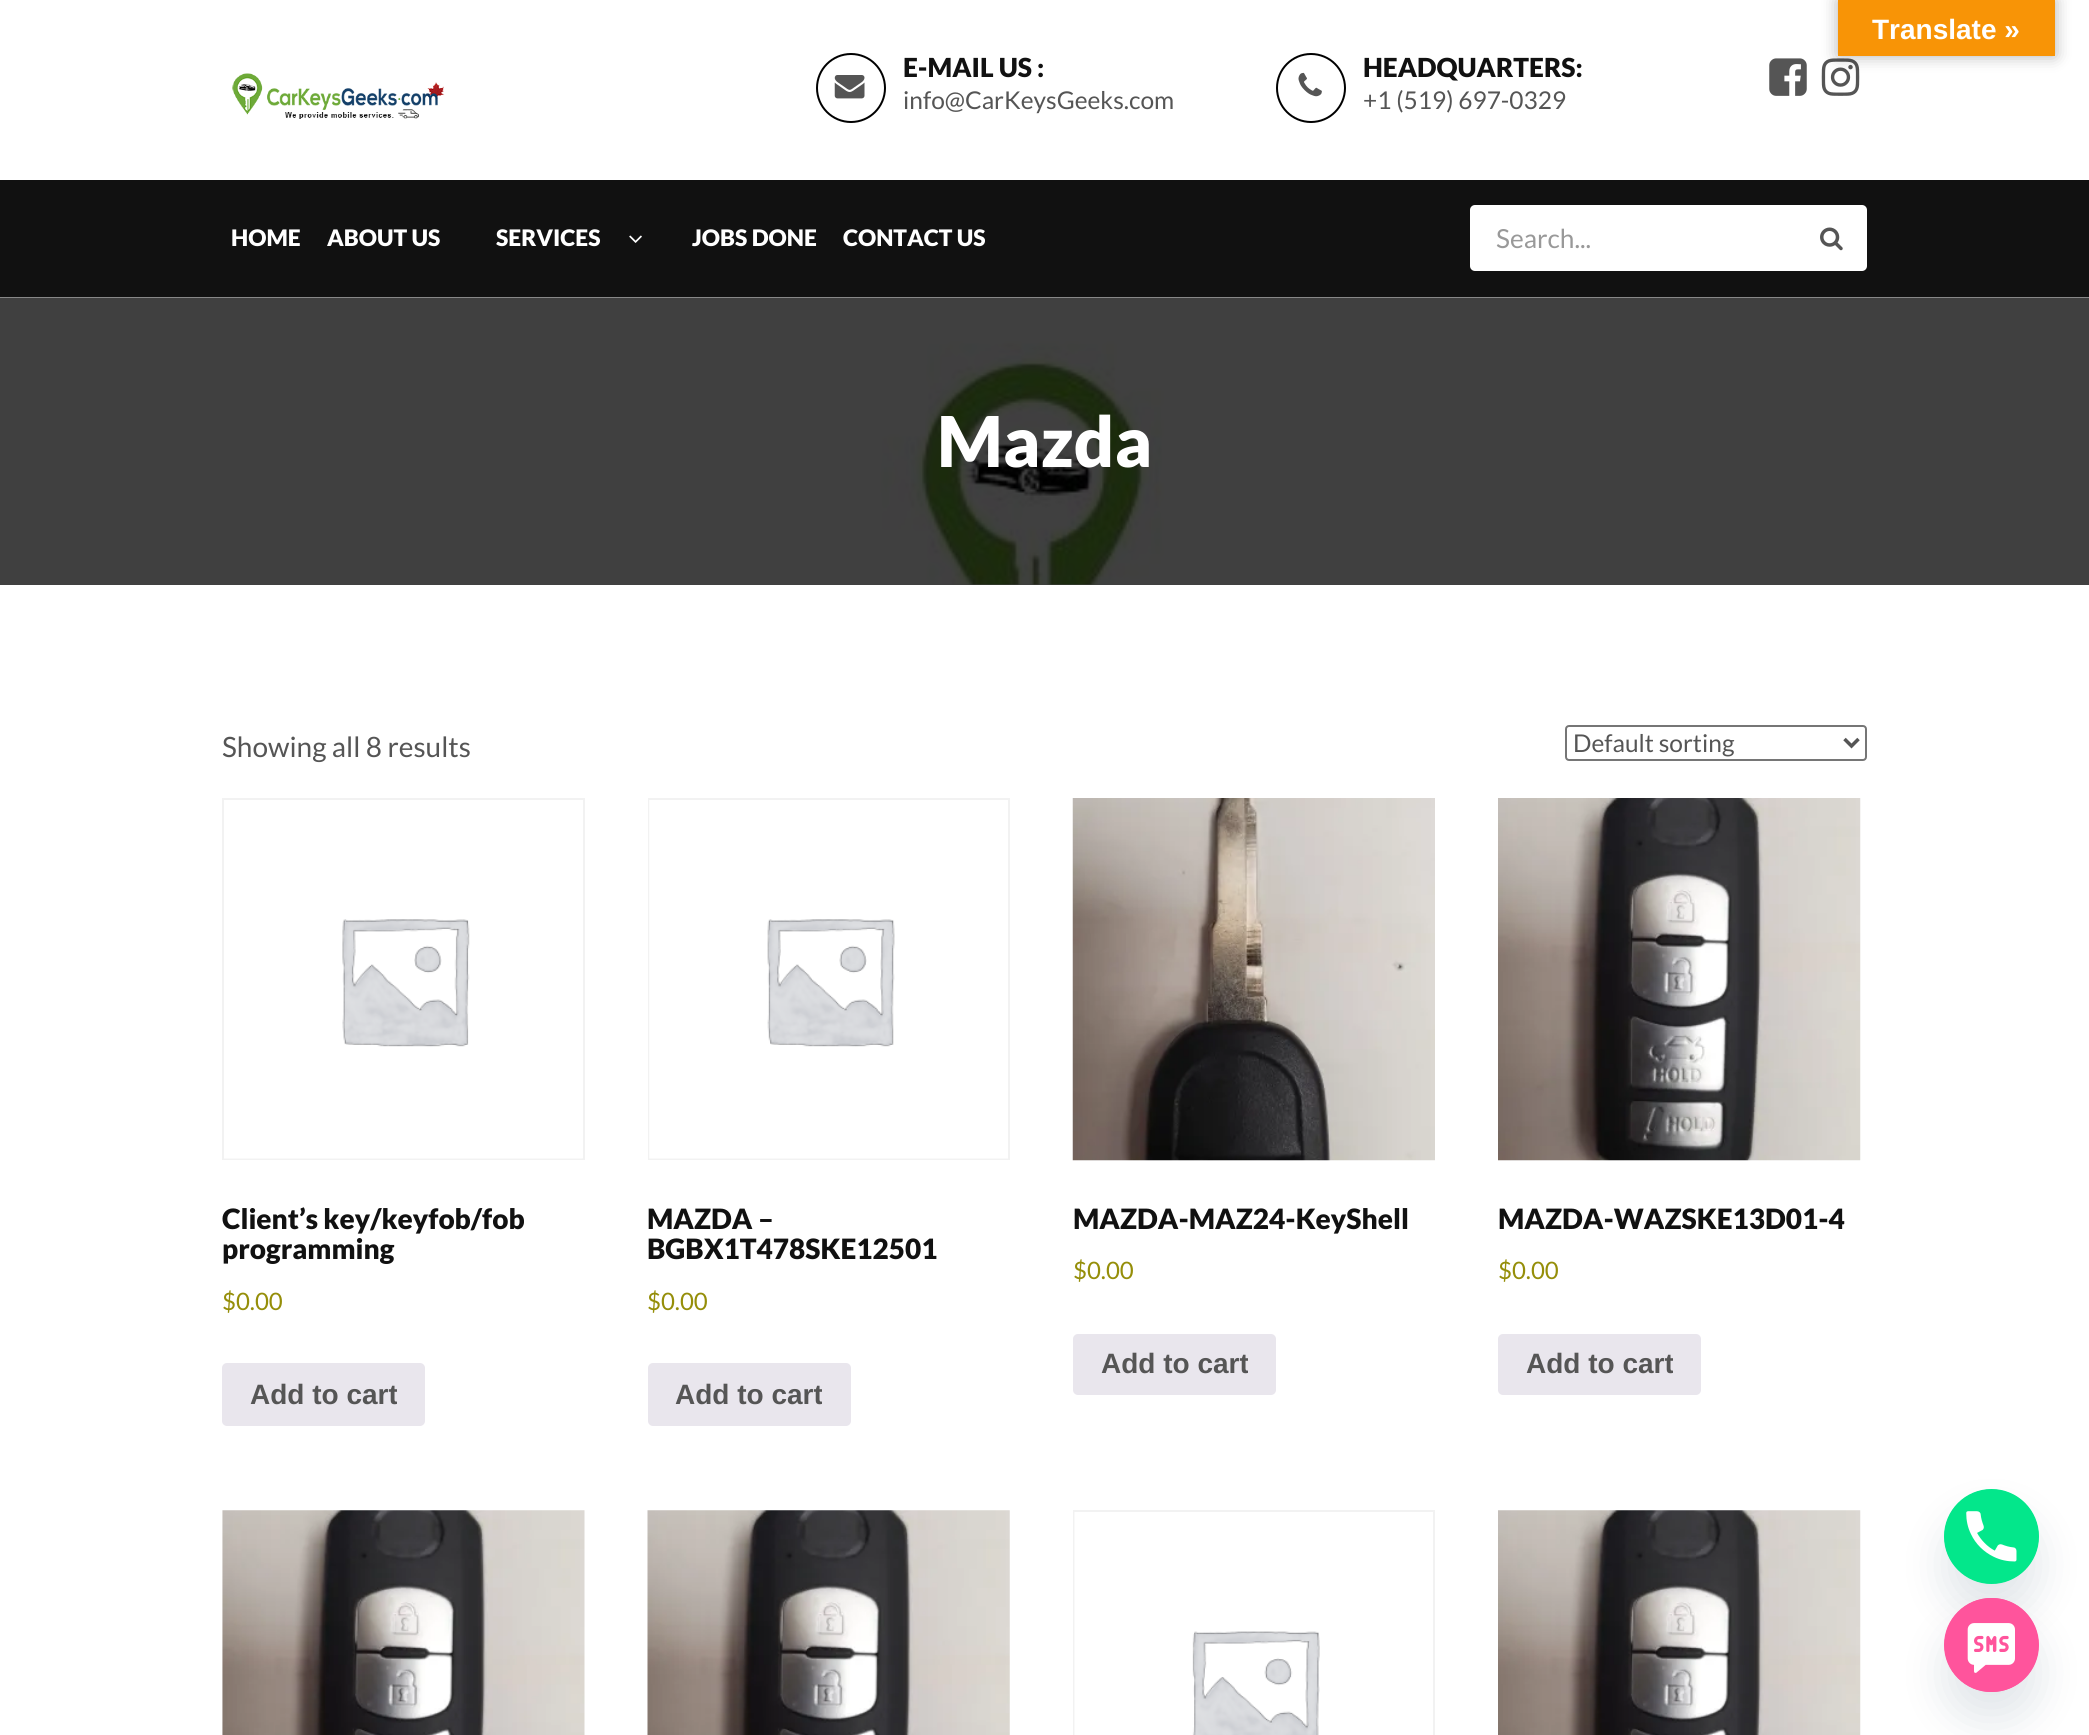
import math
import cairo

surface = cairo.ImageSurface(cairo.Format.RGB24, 2089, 1735)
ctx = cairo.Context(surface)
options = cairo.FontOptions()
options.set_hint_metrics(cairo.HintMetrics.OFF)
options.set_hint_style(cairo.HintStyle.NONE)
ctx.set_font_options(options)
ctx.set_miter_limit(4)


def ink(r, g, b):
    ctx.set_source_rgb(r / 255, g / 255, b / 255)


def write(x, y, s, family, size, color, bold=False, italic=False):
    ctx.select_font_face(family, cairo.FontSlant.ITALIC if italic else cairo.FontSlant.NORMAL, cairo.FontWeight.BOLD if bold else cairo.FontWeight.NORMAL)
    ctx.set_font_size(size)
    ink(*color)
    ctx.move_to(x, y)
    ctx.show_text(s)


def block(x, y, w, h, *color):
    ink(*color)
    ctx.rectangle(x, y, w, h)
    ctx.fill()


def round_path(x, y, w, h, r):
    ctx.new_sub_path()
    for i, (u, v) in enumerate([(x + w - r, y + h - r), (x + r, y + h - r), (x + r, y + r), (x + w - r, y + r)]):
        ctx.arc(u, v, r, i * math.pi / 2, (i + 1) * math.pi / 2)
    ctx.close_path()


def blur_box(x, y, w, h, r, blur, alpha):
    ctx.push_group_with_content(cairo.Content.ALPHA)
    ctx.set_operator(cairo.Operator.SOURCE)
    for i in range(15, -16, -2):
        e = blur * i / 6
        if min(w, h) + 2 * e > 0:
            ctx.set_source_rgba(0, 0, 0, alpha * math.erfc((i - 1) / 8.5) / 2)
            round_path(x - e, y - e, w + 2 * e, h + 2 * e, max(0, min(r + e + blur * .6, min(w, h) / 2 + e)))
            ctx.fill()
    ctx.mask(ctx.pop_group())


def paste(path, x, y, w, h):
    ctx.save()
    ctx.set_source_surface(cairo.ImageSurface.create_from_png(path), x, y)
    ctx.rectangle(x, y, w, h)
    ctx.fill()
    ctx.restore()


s1 = dict(family="Liberation Sans", size=28, color=(255, 255, 255), bold=True)
s2 = dict(family="Lato Black", size=26.25, color=(17, 17, 17))
s3 = dict(family="Lato", size=24.5, color=(85, 85, 85))
s4 = dict(family="Lato Black", size=22.75, color=(255, 255, 255))
s5 = dict(family="Lato", size=26.25, color=(153, 153, 153))
s6 = dict(family="Lato Black", size=70, color=(255, 255, 255))
s7 = dict(family="Lato", size=28, color=(85, 85, 85))
s8 = dict(family="Lato Black", size=28, color=(17, 17, 17))
s9 = dict(family="Lato", size=24, color=(149, 142, 9))
s10 = dict(family="Liberation Sans", size=28, color=(85, 85, 85), bold=True)

ink(255, 255, 255)
ctx.paint()
block(0, 584, 2089, 1, 64, 64, 64)
paste("pic5.png", 1821, 58, 39, 38)
ink(0, 0, 0)
blur_box(1838, 0, 217, 56, 0, 8, 0.3)
block(1838, 0, 217, 56, 248, 148, 6)
write(1872, 39, "Translate »", **s1)
paste("pic1.png", 232, 73, 213, 46)
ctx.arc(851, 88, 34, 0, 2 * math.pi)
ink(0, 0, 0)
ctx.stroke()
paste("pic2.png", 834, 75, 31, 24)
write(903, 77, "E-MAIL US :", **s2)
write(903, 109, "info@CarKeysGeeks.com", **s3)
ctx.new_path()
ctx.arc(1311, 88, 34, 0, 2 * math.pi)
ink(0, 0, 0)
ctx.stroke()
paste("pic3.png", 1298, 72, 24, 25)
write(1363, 77, "HEADQUARTERS:", **s2)
write(1363, 109, "+1 (519) 697-0329", **s3)
paste("pic4.png", 1769, 58, 38, 38)
block(0, 180, 2089, 118, 17, 17, 17)
write(231, 246, "HOME", **s4)
write(327, 246, "ABOUT US", **s4)
write(496, 246, "SERVICES", **s4)
paste("pic6.png", 629, 235, 13, 8)
write(692, 246, "JOBS DONE", **s4)
write(843, 246, "CONTACT US", **s4)
round_path(1470, 205, 397, 66, 5)
ctx.fill()
write(1496, 248, "Search...", **s5)
paste("pic7.png", 1820, 227, 23, 24)
paste("pic8.png", 0, 297, 2089, 288)
write(937, 467, "Mazda", **s6)
write(222, 757, "Showing all 8 results", **s7)
round_path(1566, 726, 300, 34, 3)
ink(118, 118, 118)
ctx.stroke()
ctx.new_path()
ctx.move_to(1844.5, 739)
ctx.line_to(1851.5, 746)
ctx.line_to(1858.5, 739)
ink(85, 85, 85)
ctx.set_line_width(3.5)
ctx.stroke()
write(1573, 752, "Default sorting", **s3)
ctx.rectangle(223, 799, 361, 360)
ink(242, 242, 242)
ctx.set_line_width(2)
ctx.stroke()
paste("pic9.png", 224, 919, 359, 240)
write(222, 1229, "Client’s key/keyfob/fob", **s8)
write(222, 1259, "programming", **s8)
write(222, 1310, "$0.00", **s9)
ink(233, 230, 237)
round_path(222, 1363, 203, 63, 5)
ctx.fill()
write(250, 1404, "Add to cart", **s10)
ctx.rectangle(649, 799, 360, 360)
ink(242, 242, 242)
ctx.stroke()
paste("pic10.png", 649, 800, 359, 359)
write(647, 1229, "MAZDA –", **s8)
write(647, 1259, "BGBX1T478SKE12501", **s8)
write(647, 1310, "$0.00", **s9)
ink(233, 230, 237)
round_path(648, 1363, 203, 63, 5)
ctx.fill()
write(675, 1404, "Add to cart", **s10)
paste("pic11.png", 1072, 798, 363, 363)
write(1073, 1229, "MAZDA-MAZ24-KeyShell", **s8)
write(1073, 1279, "$0.00", **s9)
ink(233, 230, 237)
round_path(1073, 1334, 203, 61, 5)
ctx.fill()
write(1101, 1373, "Add to cart", **s10)
paste("pic12.png", 1498, 798, 363, 363)
write(1498, 1229, "MAZDA-WAZSKE13D01-4", **s8)
write(1498, 1279, "$0.00", **s9)
ink(233, 230, 237)
round_path(1498, 1334, 203, 61, 5)
ctx.fill()
write(1526, 1373, "Add to cart", **s10)
paste("pic13.png", 222, 1510, 363, 225)
paste("pic14.png", 647, 1510, 363, 225)
ctx.rectangle(1074, 1511, 360, 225)
ink(242, 242, 242)
ctx.stroke()
paste("pic15.png", 1074, 1512, 246, 223)
paste("pic16.png", 1498, 1510, 363, 225)
ink(73, 104, 126)
blur_box(1944, 1517, 95, 95, 47.5, 21, 0.16)
ink(3, 231, 139)
ctx.arc(1991.5, 1536.5, 47.5, 0, 2 * math.pi)
ctx.fill()
paste("pic17.png", 1944, 1489, 95, 95)
ink(73, 104, 126)
blur_box(1944, 1626, 95, 94, 47, 21, 0.16)
ink(255, 84, 156)
round_path(1944, 1598, 95, 94, 47)
ctx.fill()
paste("pic18.png", 1944, 1598, 95, 94)
surface.write_to_png("screenshot.png")
